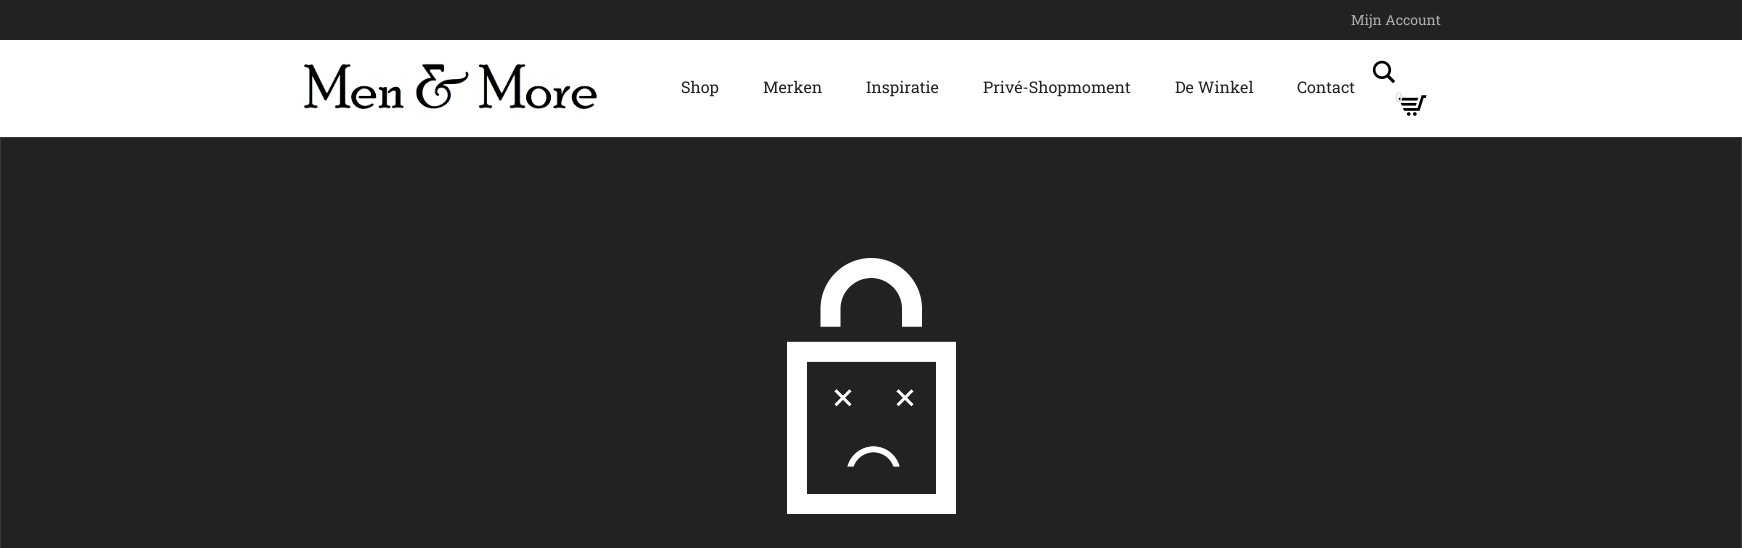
import math
import cairo

surface = cairo.ImageSurface(cairo.Format.RGB24, 1742, 548)
ctx = cairo.Context(surface)
options = cairo.FontOptions()
options.set_hint_metrics(cairo.HintMetrics.OFF)
options.set_hint_style(cairo.HintStyle.NONE)
ctx.set_font_options(options)
ctx.set_miter_limit(4)


def ink(r, g, b):
    ctx.set_source_rgb(r / 255, g / 255, b / 255)


def write(x, y, s, family, size, color, bold=False, italic=False):
    ctx.select_font_face(family, cairo.FontSlant.ITALIC if italic else cairo.FontSlant.NORMAL, cairo.FontWeight.BOLD if bold else cairo.FontWeight.NORMAL)
    ctx.set_font_size(size)
    ink(*color)
    ctx.move_to(x, y)
    ctx.show_text(s)


def block(x, y, w, h, *color):
    ink(*color)
    ctx.rectangle(x, y, w, h)
    ctx.fill()


def paste(path, x, y, w, h):
    ctx.save()
    ctx.set_source_surface(cairo.ImageSurface.create_from_png(path), x, y)
    ctx.rectangle(x, y, w, h)
    ctx.fill()
    ctx.restore()


s1 = dict(family="Roboto Slab", size=14, color=(175, 175, 175))
s2 = dict(family="Roboto Slab", size=16, color=(34, 34, 34))
s3 = dict(family="Roboto Slab", size=13, color=(226, 226, 226), bold=True)

ink(255, 255, 255)
ctx.paint()
ink(34, 34, 34)
ctx.rectangle(0.5, 137.5, 1741, 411)
ctx.fill_preserve()
ink(58, 58, 58)
ctx.set_line_width(1)
ctx.stroke()
block(0, 137, 1742, 1, 55, 55, 55)
block(0, 0, 1742, 40, 34, 34, 34)
write(1351, 25, "Mijn Account", **s1)
paste("pic1.png", 304, 63, 293, 46)
write(681, 93, "Shop", **s2)
write(763, 93, "Merken", **s2)
write(866, 93, "Inspiratie", **s2)
write(983, 93, "Privé-Shopmoment", **s2)
write(1175, 93, "De Winkel", **s2)
write(1297, 93, "Contact", **s2)
paste("pic2.png", 1372, 60, 24, 24)
paste("pic3.png", 1398, 95, 29, 21)
write(1395, 102, "0", **s3)
paste("pic4.png", 787, 258, 169, 256)
surface.write_to_png("screenshot.png")
